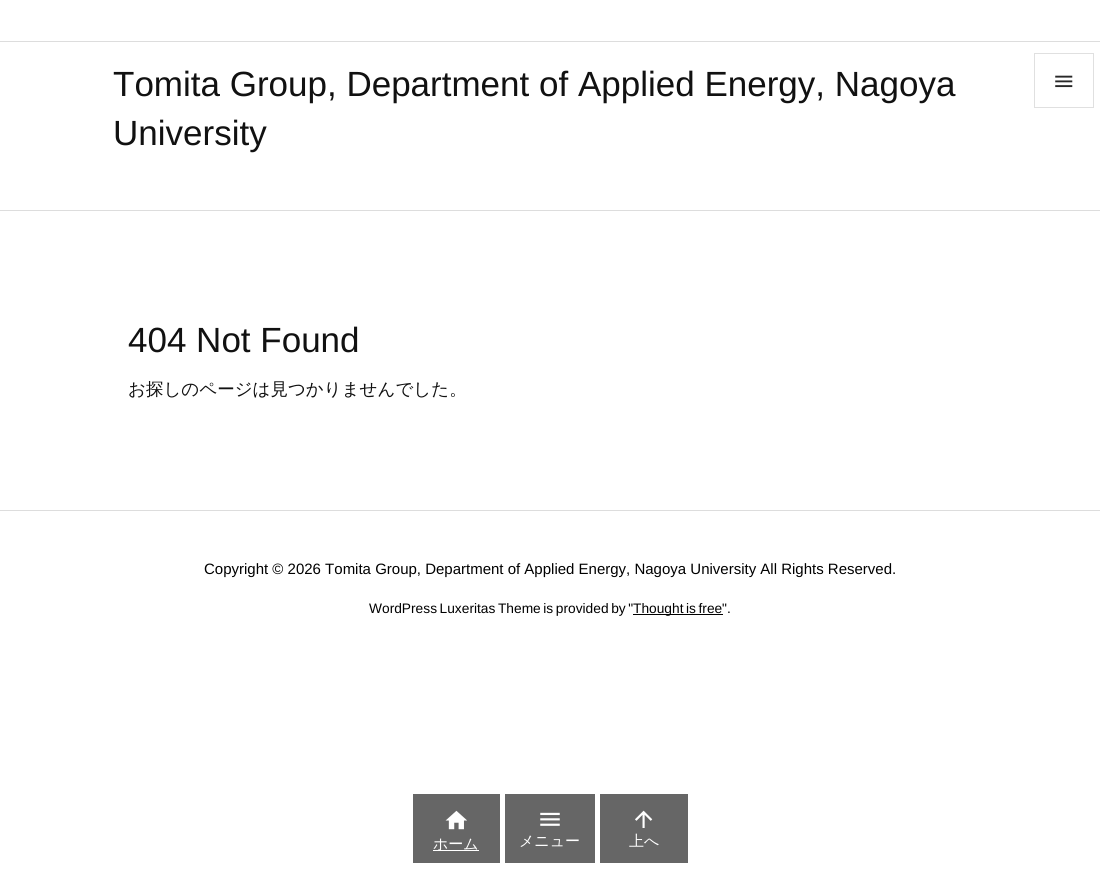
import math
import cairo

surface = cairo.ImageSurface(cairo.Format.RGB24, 1100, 880)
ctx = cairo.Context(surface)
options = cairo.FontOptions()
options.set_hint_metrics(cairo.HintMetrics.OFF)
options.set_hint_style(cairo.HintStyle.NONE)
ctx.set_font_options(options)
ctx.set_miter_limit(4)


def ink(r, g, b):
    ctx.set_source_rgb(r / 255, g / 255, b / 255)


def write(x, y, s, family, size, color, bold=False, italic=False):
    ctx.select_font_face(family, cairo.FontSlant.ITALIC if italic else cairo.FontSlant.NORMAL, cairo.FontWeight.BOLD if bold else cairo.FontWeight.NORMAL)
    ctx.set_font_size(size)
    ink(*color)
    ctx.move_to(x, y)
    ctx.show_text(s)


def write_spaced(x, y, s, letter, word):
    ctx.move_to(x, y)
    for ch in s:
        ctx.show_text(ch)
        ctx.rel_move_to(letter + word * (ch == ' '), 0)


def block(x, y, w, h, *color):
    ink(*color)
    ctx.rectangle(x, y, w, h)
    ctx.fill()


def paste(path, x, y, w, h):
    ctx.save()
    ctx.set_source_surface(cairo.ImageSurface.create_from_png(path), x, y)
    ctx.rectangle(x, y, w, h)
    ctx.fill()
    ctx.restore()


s1 = dict(family="Liberation Sans", size=35, color=(17, 17, 17))
s2 = dict(family="WenQuanYi Zen Hei Medium", size=17.5, color=(17, 17, 17))
s3 = dict(family="Liberation Sans", size=15, color=(0, 0, 0))
s4 = dict(family="Liberation Sans", size=13.75, color=(0, 0, 0))
s5 = dict(family="WenQuanYi Zen Hei Medium", size=15, color=(255, 255, 255))

ink(255, 255, 255)
ctx.paint()
block(0, 41, 1100, 1, 221, 221, 221)
block(0, 210, 1100, 1, 221, 221, 221)
ctx.rectangle(1034.5, 53.5, 59, 54)
ink(224, 224, 224)
ctx.set_line_width(1)
ctx.stroke()
paste("pic1.png", 1055, 75, 18, 13)
write(113, 96, "Tomita Group, Department of Applied Energy, Nagoya", **s1)
write(113, 145, "University", **s1)
write(128, 352, "404 Not Found", **s1)
write(128, 395, "お探しのページは見つかりませんでした。", **s2)
block(0, 510, 1100, 1, 221, 221, 221)
write(204, 574, "Copyright © 2026 Tomita Group, Department of Applied Energy, Nagoya University All Rights Reserved.", **s3)
ctx.set_font_size(13.75)
write_spaced(369, 613, "WordPress Luxeritas Theme is provided by \"", 0, -1.25)
block(633, 614, 90, 1, 0, 0, 0)
write_spaced(633, 613, "Thought is free", 0, -1.25)
write(722, 613, "\".", **s4)
block(413, 794, 87, 69, 102, 102, 102)
paste("pic2.png", 445, 810, 22, 20)
block(433, 850, 46, 1, 255, 255, 255)
write(433, 849, "ホーム", **s5)
block(505, 794, 90, 69, 102, 102, 102)
paste("pic3.png", 540, 812, 20, 14)
write(519, 846, "メニュー", **s5)
block(600, 794, 88, 69, 102, 102, 102)
paste("pic4.png", 635, 810, 18, 18)
write(629, 846, "上へ", **s5)
surface.write_to_png("screenshot.png")
